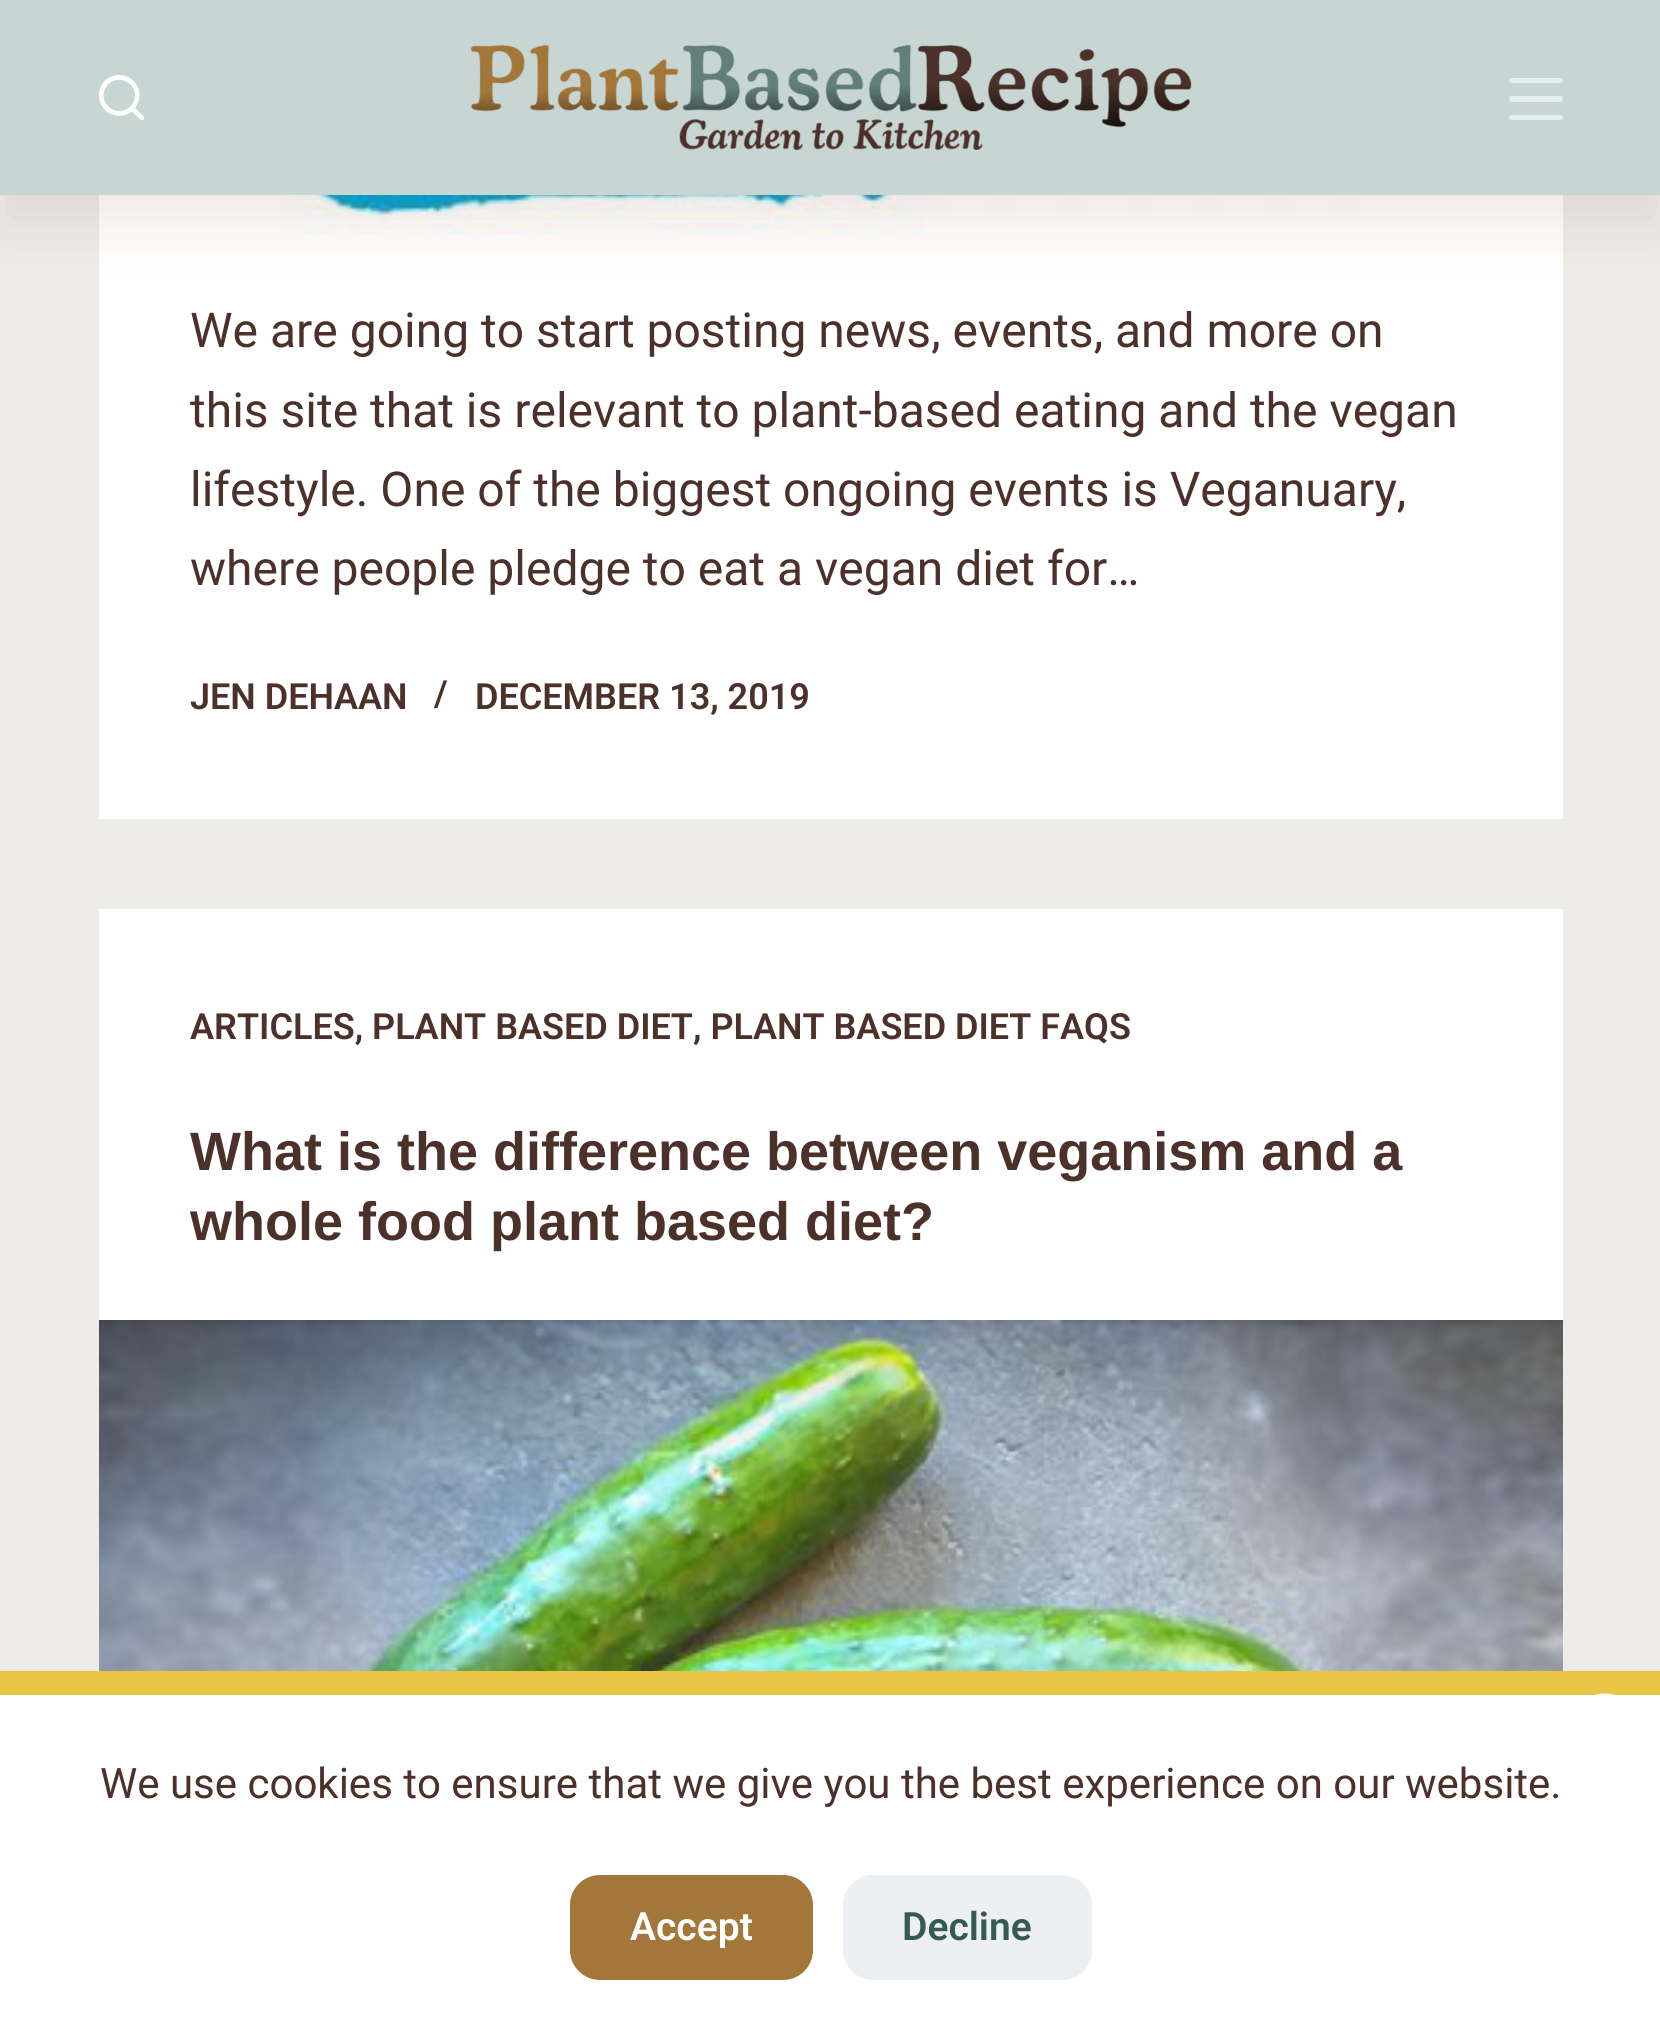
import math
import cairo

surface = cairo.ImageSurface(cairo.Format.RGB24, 1660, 2040)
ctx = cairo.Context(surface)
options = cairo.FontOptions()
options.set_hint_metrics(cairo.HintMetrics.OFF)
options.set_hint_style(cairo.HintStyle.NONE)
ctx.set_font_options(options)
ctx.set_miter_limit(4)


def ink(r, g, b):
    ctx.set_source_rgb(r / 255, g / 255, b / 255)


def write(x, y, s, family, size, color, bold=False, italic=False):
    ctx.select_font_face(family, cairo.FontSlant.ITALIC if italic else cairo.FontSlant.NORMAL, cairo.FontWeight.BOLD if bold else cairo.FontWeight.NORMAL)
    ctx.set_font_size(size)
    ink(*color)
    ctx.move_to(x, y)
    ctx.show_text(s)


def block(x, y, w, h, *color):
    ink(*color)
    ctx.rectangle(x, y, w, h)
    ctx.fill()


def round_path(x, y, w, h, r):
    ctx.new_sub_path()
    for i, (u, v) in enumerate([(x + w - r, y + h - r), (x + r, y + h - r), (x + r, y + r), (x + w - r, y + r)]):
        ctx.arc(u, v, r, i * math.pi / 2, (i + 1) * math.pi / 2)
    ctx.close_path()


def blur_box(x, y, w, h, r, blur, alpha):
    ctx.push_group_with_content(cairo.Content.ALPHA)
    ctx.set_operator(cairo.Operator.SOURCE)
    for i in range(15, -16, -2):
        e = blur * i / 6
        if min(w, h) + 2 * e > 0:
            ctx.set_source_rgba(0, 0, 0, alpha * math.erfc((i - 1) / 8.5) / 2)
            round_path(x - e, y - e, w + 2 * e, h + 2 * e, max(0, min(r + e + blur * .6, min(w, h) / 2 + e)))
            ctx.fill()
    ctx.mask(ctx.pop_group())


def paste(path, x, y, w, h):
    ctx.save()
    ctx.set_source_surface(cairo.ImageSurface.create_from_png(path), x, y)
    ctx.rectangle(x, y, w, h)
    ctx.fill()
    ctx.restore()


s1 = dict(family="Roboto", size=48, color=(75, 49, 42))
s2 = dict(family="Roboto SemiBold", size=36, color=(75, 49, 42))
s3 = dict(family="Liberation Sans", size=54, color=(75, 49, 42), bold=True)
s4 = dict(family="Roboto", size=42, color=(75, 49, 42))
s5 = dict(family="Roboto SemiBold", size=39, color=(255, 255, 255))
s6 = dict(family="Roboto SemiBold", size=39, color=(54, 89, 81))

ink(238, 236, 232)
ctx.paint()
block(99, 195, 1464, 624, 255, 255, 255)
paste("pic3.png", 278, 195, 1103, 39)
ink(106, 38, 1)
blur_box(0, 30, 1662, 195, 0, 30, 0.1)
block(0, 0, 1660, 195, 199, 213, 211)
paste("pic1.png", 99, 75, 45, 45)
paste("pic2.png", 470, 45, 722, 105)
ink(230, 240, 238)
round_path(1509, 78, 54, 5, 2.5)
ctx.fill()
round_path(1509, 96, 54, 6, 3)
ctx.fill()
round_path(1509, 115, 54, 5, 2.5)
ctx.fill()
write(190, 347, "We are going to start posting news, events, and more on", **s1)
write(190, 427, "this site that is relevant to plant-based eating and the vegan", **s1)
write(190, 506, "lifestyle. One of the biggest ongoing events is Veganuary,", **s1)
write(190, 585, "where people pledge to eat a vegan diet for…", **s1)
write(190, 709, "JEN DEHAAN", **s2)
write(434, 706, "/", **s2)
write(475, 709, "DECEMBER 13, 2019", **s2)
block(99, 909, 1464, 411, 255, 255, 255)
write(190, 1039, "ARTICLES, PLANT BASED DIET, PLANT BASED DIET FAQS", **s2)
write(190, 1170, "What is the difference between veganism and a", **s3)
write(190, 1240, "whole food plant based diet?", **s3)
paste("pic4.png", 99, 1320, 1464, 351)
block(0, 1671, 1660, 24, 234, 197, 69)
ctx.arc(1605, 1728, 33, 0, 2 * math.pi)
ink(255, 255, 255)
ctx.set_line_width(3)
ctx.stroke()
block(0, 1695, 1660, 345, 255, 255, 255)
write(100, 1798, "We use cookies to ensure that we give you the best experience on our website.", **s4)
ink(163, 118, 58)
round_path(570, 1875, 243, 105, 30)
ctx.fill()
write(630, 1940, "Accept", **s5)
ink(236, 239, 243)
round_path(843, 1875, 249, 105, 30)
ctx.fill()
write(902, 1940, "Decline", **s6)
surface.write_to_png("screenshot.png")
